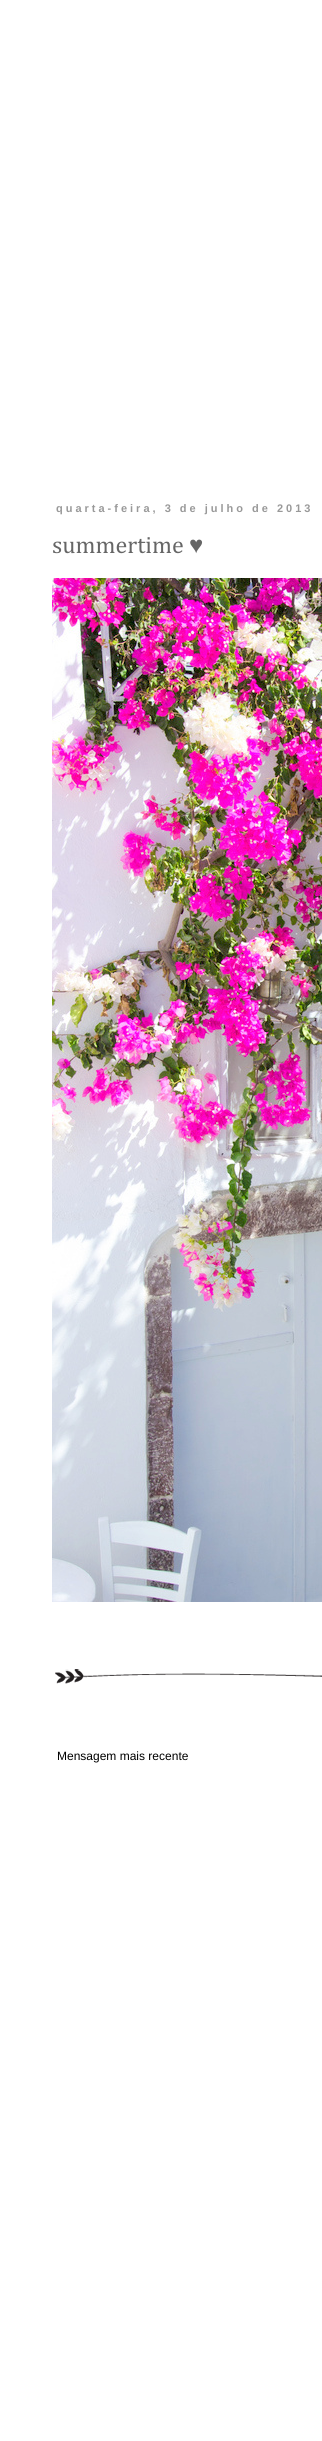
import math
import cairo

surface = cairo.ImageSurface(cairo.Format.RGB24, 322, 2441)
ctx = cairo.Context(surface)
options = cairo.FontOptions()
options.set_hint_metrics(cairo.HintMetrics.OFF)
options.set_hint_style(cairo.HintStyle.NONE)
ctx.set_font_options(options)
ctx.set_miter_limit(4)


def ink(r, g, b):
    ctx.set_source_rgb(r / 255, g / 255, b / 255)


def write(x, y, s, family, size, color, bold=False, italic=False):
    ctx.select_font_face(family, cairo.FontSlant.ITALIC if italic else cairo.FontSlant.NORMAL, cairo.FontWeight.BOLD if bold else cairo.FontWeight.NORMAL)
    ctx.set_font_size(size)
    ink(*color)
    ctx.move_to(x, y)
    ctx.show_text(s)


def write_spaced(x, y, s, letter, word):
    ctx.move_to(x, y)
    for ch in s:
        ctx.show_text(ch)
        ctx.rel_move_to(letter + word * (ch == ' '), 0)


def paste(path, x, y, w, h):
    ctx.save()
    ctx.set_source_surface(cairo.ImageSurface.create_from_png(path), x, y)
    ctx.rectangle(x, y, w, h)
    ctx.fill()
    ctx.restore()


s1 = dict(family="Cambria", size=24, color=(102, 102, 102))
s2 = dict(family="Liberation Serif", size=24, color=(102, 102, 102))
s3 = dict(family="Liberation Sans", size=12, color=(0, 0, 0))

ink(255, 255, 255)
ctx.paint()
ctx.select_font_face("Liberation Sans", cairo.FontSlant.NORMAL, cairo.FontWeight.BOLD)
ctx.set_font_size(11)
ink(153, 153, 153)
write_spaced(56, 512, "quarta-feira, 3 de julho de 2013", 3, 0)
write(52, 553, "summertime", **s1)
write(189, 553, "♥", **s2)
paste("pic1.png", 52, 578, 270, 1024)
paste("pic2.png", 55, 1669, 267, 15)
write(57, 1760, "Mensagem mais recente", **s3)
surface.write_to_png("screenshot.png")
